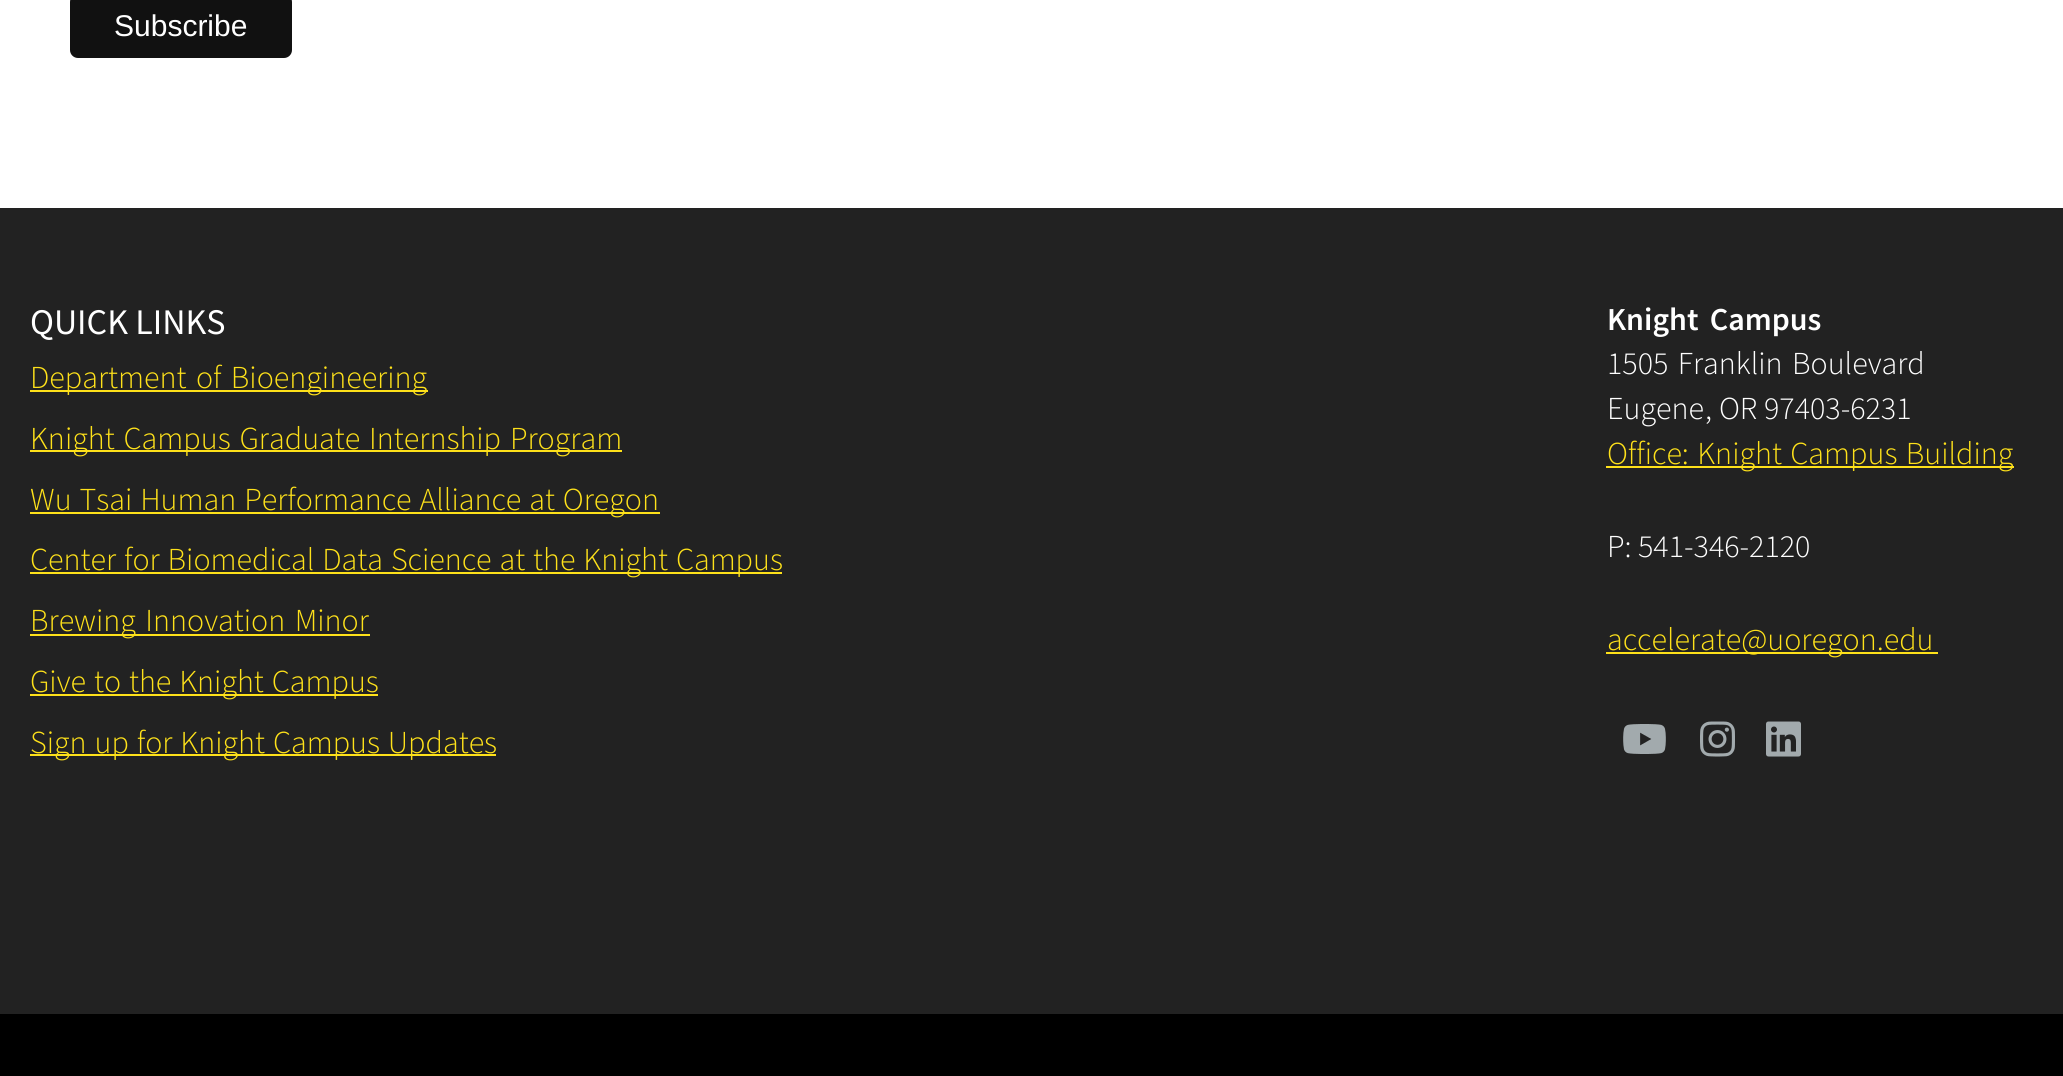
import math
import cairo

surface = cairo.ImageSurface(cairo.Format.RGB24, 2063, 1076)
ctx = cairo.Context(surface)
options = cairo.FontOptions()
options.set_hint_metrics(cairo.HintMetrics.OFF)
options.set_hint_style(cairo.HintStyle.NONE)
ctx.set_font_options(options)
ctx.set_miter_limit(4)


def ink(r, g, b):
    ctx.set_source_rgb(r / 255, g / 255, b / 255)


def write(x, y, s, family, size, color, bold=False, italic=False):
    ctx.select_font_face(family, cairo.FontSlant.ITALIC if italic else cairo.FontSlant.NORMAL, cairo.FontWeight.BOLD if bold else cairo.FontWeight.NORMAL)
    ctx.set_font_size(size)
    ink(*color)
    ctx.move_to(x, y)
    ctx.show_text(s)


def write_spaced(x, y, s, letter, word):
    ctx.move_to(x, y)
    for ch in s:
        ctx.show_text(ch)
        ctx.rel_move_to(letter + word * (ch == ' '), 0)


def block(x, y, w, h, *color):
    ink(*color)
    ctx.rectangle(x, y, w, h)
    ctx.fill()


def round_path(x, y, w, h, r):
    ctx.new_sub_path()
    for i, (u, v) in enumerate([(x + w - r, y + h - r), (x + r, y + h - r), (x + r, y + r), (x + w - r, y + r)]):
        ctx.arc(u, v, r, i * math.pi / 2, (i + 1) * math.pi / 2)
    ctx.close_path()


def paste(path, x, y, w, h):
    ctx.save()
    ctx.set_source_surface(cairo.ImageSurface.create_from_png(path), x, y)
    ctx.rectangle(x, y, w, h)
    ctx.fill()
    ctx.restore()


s1 = dict(family="Liberation Sans", size=30, color=(255, 255, 255))
s2 = dict(family="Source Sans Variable", size=36, color=(255, 255, 255))
s3 = dict(family="Source Sans Variable Light", size=32, color=(255, 255, 255))
s4 = dict(family="Source Sans Variable Light", size=32, color=(254, 225, 26))

ink(0, 0, 0)
ctx.paint()
block(0, 0, 2063, 208, 255, 255, 255)
ink(17, 17, 17)
round_path(70, -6, 222, 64, 8)
ctx.fill()
write(114, 36, "Subscribe", **s1)
block(0, 208, 2063, 806, 34, 34, 34)
write(30, 334, "QUICK LINKS", **s2)
block(30, 390, 398, 2, 254, 225, 26)
ctx.select_font_face("Source Sans Variable Light")
ctx.set_font_size(32)
write_spaced(30, 388, "Department of Bioengineering", 0, 3)
block(30, 450, 592, 2, 254, 225, 26)
write_spaced(30, 449, "Knight Campus Graduate Internship Program", 0, 2.5)
block(30, 512, 630, 2, 254, 225, 26)
write_spaced(30, 510, "Wu Tsai Human Performance Alliance at Oregon", 0, 1.5)
block(30, 572, 752, 2, 254, 225, 26)
write_spaced(30, 570, "Center for Biomedical Data Science at the Knight Campus", 0, 1.5)
block(30, 634, 340, 2, 254, 225, 26)
write_spaced(30, 631, "Brewing Innovation Minor", 0, 3)
block(30, 694, 348, 2, 254, 225, 26)
write_spaced(30, 692, "Give to the Knight Campus", 0, 1.5)
block(30, 754, 466, 2, 254, 225, 26)
write_spaced(30, 753, "Sign up for Knight Campus Updates", 0, 1.5)
ctx.select_font_face("Source Sans Variable SemiBold")
ink(255, 255, 255)
write_spaced(1607, 330, "Knight Campus", 0, 5)
ctx.select_font_face("Source Sans Variable Light")
write_spaced(1607, 374, "1505 Franklin Boulevard", 0, 3)
write(1607, 419, "Eugene", **s3)
write(1705, 419, ",", **s3)
write(1719, 419, "OR", **s3)
write(1764, 419, "97403-6231", **s3)
block(1606, 466, 408, 2, 254, 225, 26)
write_spaced(1607, 464, "Office: Knight Campus Building", 0, 2)
write(1607, 557, "P:", **s3)
write(1638, 557, "541-346-2120", **s3)
block(1606, 652, 332, 2, 254, 225, 26)
write(1607, 650, "accelerate@uoregon.edu", **s4)
paste("pic1.png", 1623, 724, 43, 30)
paste("pic2.png", 1700, 721, 35, 36)
paste("pic3.png", 1766, 721, 35, 36)
surface.write_to_png("screenshot.png")
